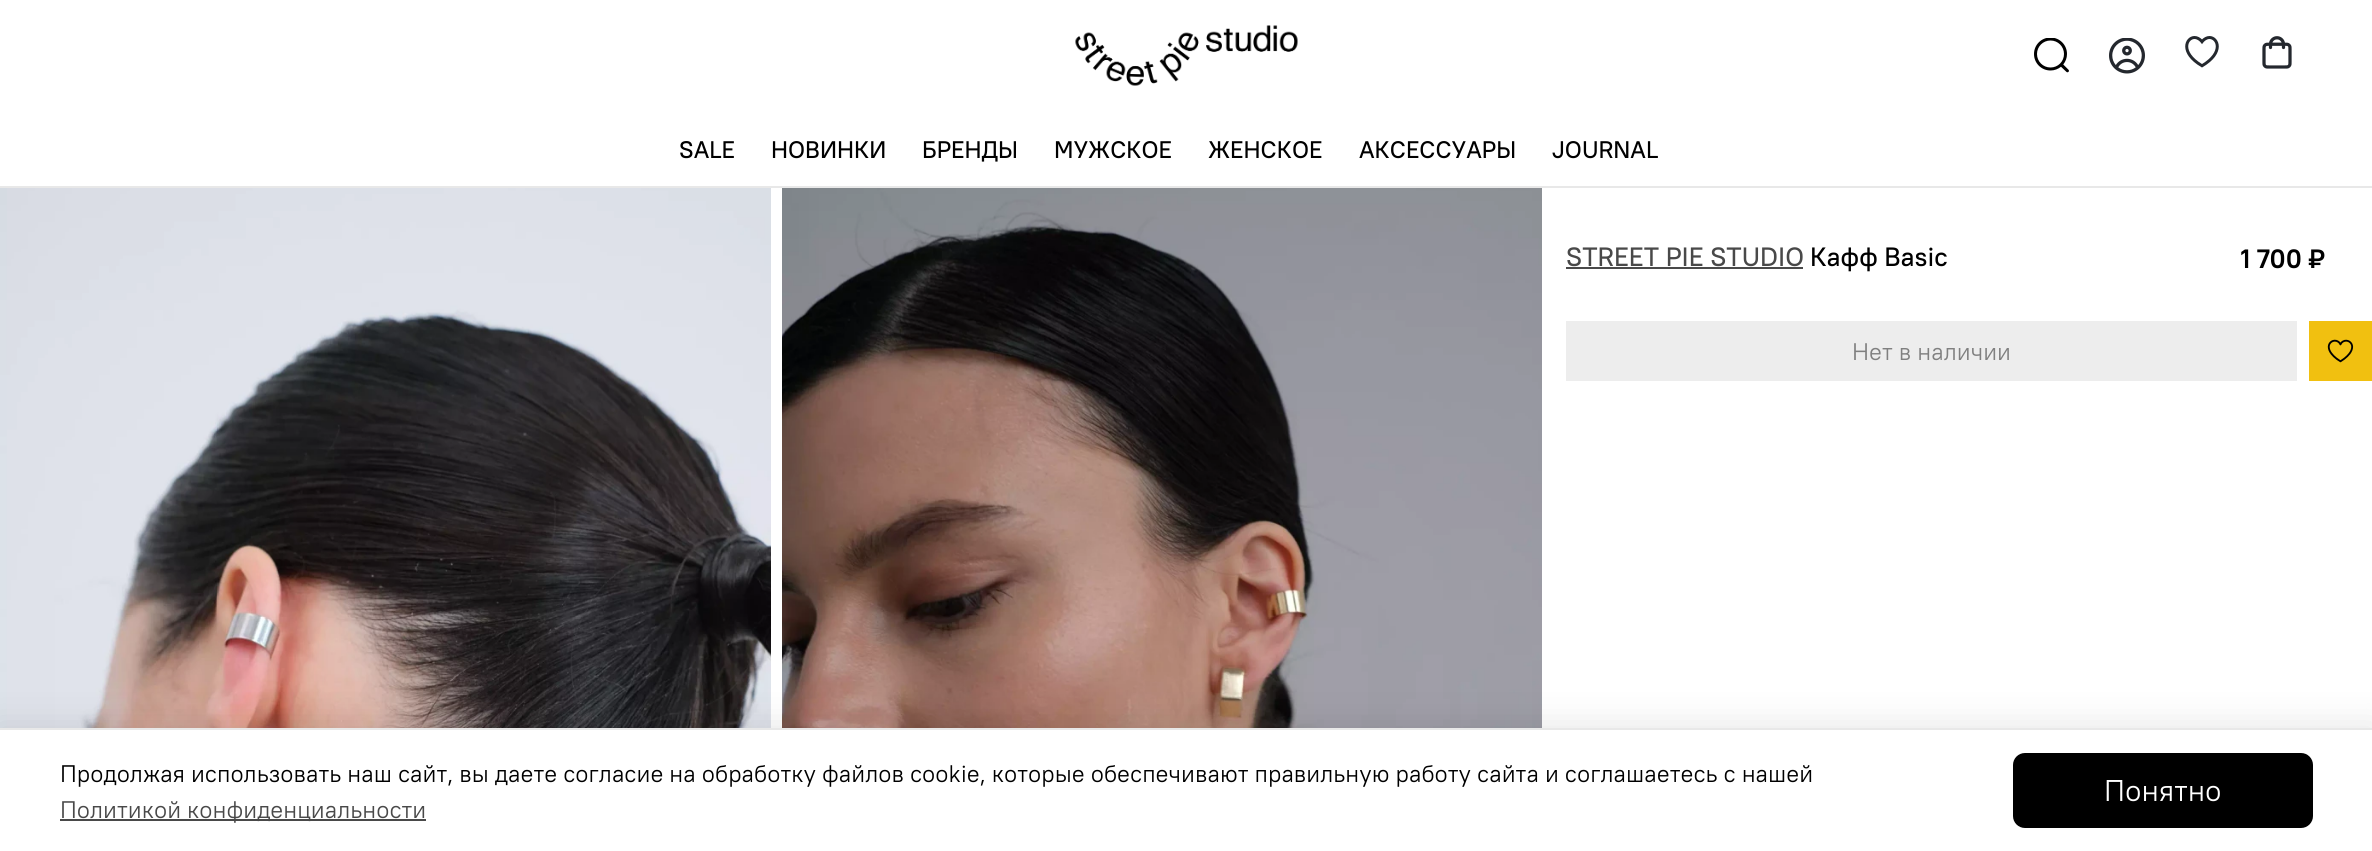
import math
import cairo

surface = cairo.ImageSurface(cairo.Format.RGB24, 2372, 851)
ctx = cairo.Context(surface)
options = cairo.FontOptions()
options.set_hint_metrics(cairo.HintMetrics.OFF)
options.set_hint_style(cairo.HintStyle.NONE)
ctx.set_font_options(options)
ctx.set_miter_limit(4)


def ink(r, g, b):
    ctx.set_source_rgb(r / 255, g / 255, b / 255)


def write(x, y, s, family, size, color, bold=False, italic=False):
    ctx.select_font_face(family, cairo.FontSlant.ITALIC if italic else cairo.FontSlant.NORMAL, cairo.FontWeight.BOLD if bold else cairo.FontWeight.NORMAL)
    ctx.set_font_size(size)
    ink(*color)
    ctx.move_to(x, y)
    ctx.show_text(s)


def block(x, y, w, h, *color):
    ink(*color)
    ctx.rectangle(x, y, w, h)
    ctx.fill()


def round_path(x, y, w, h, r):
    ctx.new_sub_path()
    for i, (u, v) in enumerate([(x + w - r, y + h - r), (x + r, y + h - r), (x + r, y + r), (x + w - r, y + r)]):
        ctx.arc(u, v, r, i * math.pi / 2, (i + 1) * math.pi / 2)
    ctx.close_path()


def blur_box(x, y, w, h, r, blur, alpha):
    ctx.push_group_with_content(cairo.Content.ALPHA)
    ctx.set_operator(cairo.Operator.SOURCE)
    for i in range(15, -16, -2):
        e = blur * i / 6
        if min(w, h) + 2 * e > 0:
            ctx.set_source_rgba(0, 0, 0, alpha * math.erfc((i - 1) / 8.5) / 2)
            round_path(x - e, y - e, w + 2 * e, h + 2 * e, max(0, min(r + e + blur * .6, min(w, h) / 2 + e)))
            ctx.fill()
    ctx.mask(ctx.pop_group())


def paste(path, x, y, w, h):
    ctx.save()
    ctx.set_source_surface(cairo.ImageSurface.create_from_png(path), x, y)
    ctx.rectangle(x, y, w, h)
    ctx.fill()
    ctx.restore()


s1 = dict(family="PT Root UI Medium", size=24, color=(0, 0, 0))
s2 = dict(family="PT Root UI Medium", size=26.5, color=(73, 73, 73))
s3 = dict(family="PT Root UI Medium", size=26.5, color=(0, 0, 0))
s4 = dict(family="PT Root UI", size=26.5, color=(0, 0, 0), bold=True)
s5 = dict(family="PT Root UI", size=24, color=(128, 128, 128))
s6 = dict(family="PT Root UI", size=24, color=(0, 0, 0))
s7 = dict(family="PT Root UI", size=24, color=(73, 73, 73))
s8 = dict(family="PT Root UI", size=30, color=(255, 255, 255))

ink(255, 255, 255)
ctx.paint()
block(0, 186, 2372, 2, 232, 232, 232)
paste("pic1.png", 1075, 25, 223, 61)
paste("pic2.png", 2034, 38, 35, 35)
paste("pic3.png", 2109, 38, 36, 36)
paste("pic4.png", 2185, 36, 34, 32)
paste("pic5.png", 2262, 36, 30, 33)
write(679, 158, "SALE", **s1)
write(771, 158, "НОВИНКИ", **s1)
write(922, 158, "БРЕНДЫ", **s1)
write(1054, 158, "МУЖСКОЕ", **s1)
write(1208, 158, "ЖЕНСКОЕ", **s1)
write(1359, 158, "АКСЕССУАРЫ", **s1)
write(1552, 158, "JOURNAL", **s1)
paste("pic6.png", 0, 188, 771, 540)
paste("pic7.png", 782, 188, 760, 540)
write(1566, 266, "STREET PIE STUDIO", **s2)
block(1566, 267, 237, 2, 73, 73, 73)
write(1810, 266, "Кафф Basic", **s3)
write(2241, 268, "1 700 ₽", **s4)
block(1566, 321, 731, 60, 237, 237, 237)
write(1852, 360, "Нет в наличии", **s5)
block(2309, 321, 63, 60, 241, 192, 16)
paste("pic8.png", 2327, 339, 27, 24)
ink(0, 0, 0)
blur_box(-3, 723, 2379, 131, 0, 17, 0.09)
block(0, 730, 2372, 121, 255, 255, 255)
block(0, 728, 2372, 2, 232, 232, 232)
write(60, 782, "Продолжая использовать наш сайт, вы даете согласие на обработку файлов cookie, которые обеспечивают правильную работу сайта и соглашаетесь с нашей", **s6)
block(60, 819, 366, 2, 73, 73, 73)
write(60, 818, "Политикой конфиденциальности", **s7)
ink(0, 0, 0)
round_path(2014, 754, 298, 73, 11)
ctx.fill_preserve()
ctx.stroke()
write(2104, 801, "Понятно", **s8)
surface.write_to_png("screenshot.png")
